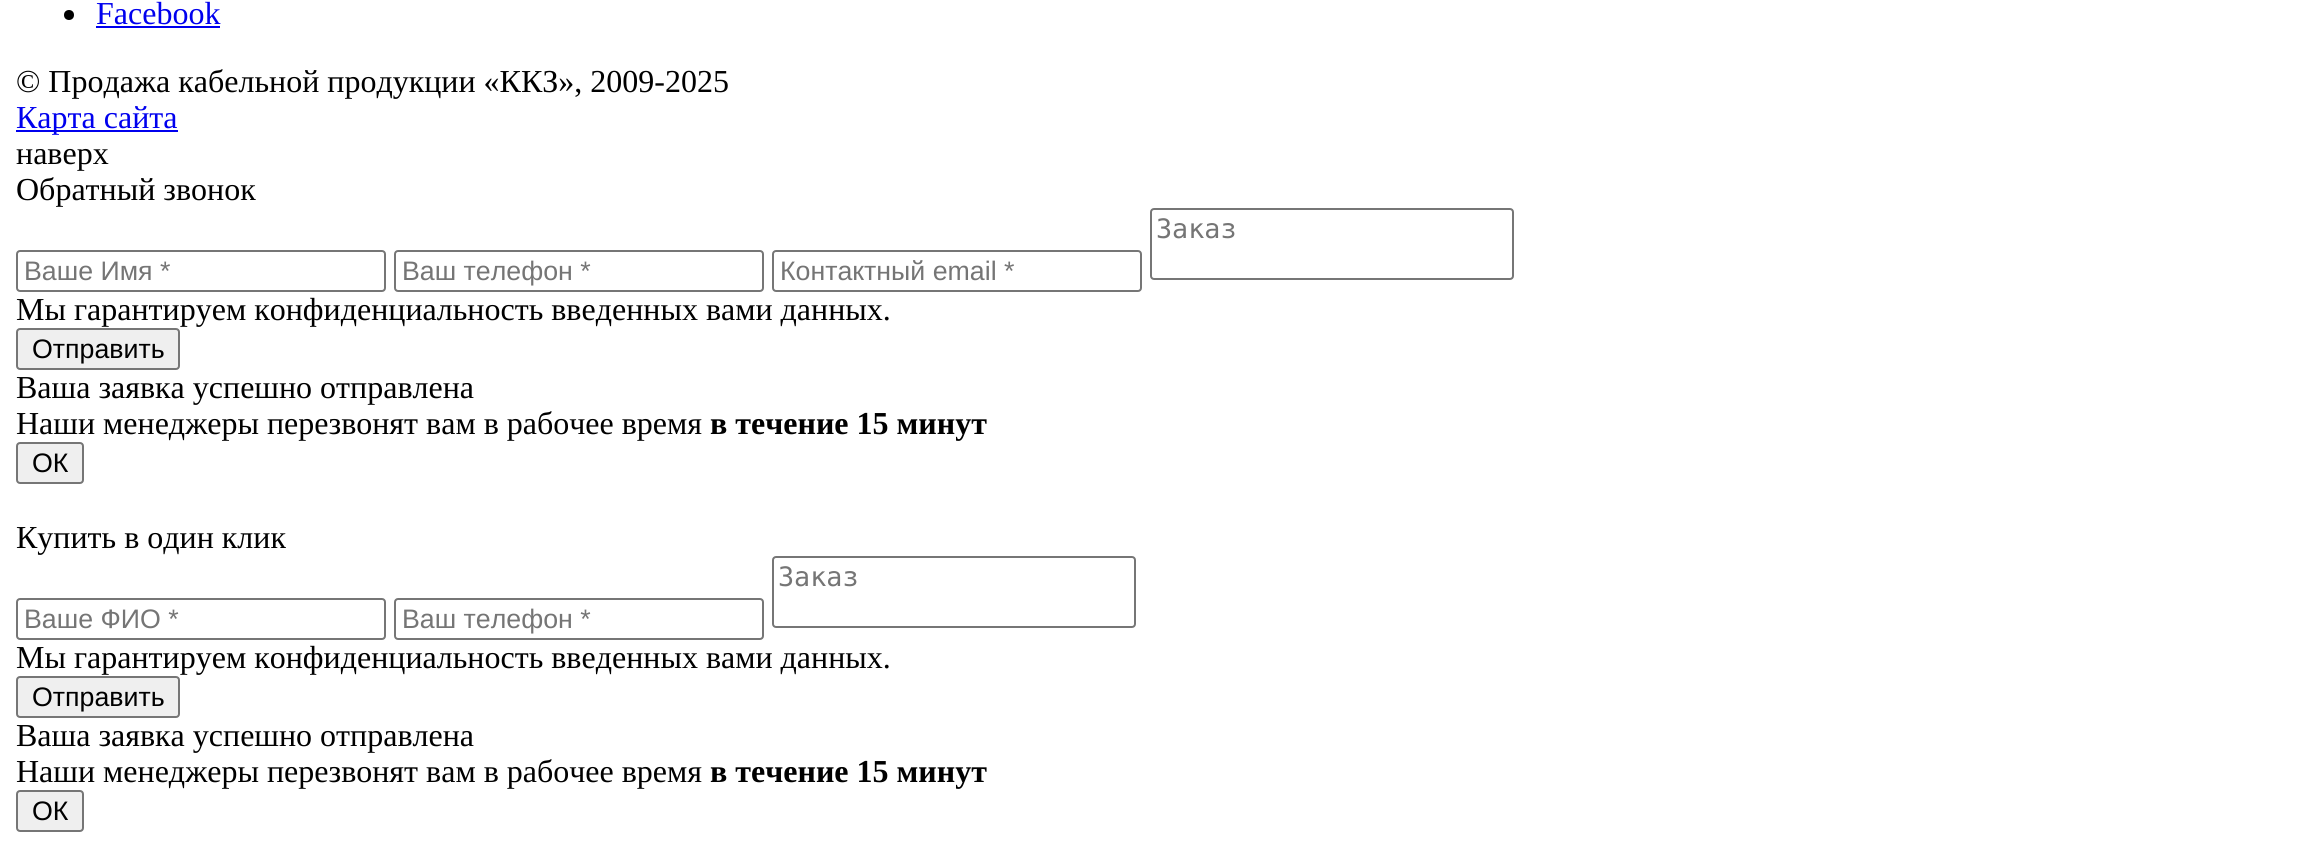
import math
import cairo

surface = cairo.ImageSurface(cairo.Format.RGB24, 2310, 847)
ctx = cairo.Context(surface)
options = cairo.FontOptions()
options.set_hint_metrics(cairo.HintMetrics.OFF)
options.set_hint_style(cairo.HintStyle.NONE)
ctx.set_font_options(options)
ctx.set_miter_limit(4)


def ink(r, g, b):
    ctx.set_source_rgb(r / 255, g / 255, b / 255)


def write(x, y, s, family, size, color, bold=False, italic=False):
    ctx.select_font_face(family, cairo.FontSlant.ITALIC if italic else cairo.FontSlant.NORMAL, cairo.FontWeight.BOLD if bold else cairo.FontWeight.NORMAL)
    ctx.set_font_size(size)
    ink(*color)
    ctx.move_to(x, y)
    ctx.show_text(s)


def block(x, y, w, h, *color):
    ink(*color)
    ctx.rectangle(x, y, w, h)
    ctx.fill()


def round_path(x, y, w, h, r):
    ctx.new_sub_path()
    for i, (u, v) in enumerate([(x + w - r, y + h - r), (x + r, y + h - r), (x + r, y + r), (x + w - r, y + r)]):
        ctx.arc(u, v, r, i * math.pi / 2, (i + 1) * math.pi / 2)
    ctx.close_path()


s1 = dict(family="Liberation Serif", size=32, color=(0, 0, 238))
s2 = dict(family="Liberation Serif", size=32, color=(0, 0, 0))
s3 = dict(family="DejaVu Sans Mono", size=26.75, color=(117, 117, 117))
s4 = dict(family="Liberation Sans", size=26.75, color=(117, 117, 117))
s5 = dict(family="Liberation Sans", size=26.75, color=(0, 0, 0))
s6 = dict(family="Liberation Serif", size=32, color=(0, 0, 0), bold=True)

ink(255, 255, 255)
ctx.paint()
ink(0, 0, 0)
ctx.arc(69, 15, 5, 0, 2 * math.pi)
ctx.fill()
write(96, 24, "Facebook", **s1)
block(96, 26, 124, 2, 0, 0, 238)
write(16, 92, "© Продажа кабельной продукции «ККЗ», 2009-2025", **s2)
block(16, 130, 162, 2, 0, 0, 238)
write(16, 128, "Карта сайта", **s1)
write(16, 164, "наверх", **s2)
write(16, 200, "Обратный звонок", **s2)
round_path(1151, 209, 362, 70, 3)
ink(118, 118, 118)
ctx.stroke()
write(1156, 238, "Заказ", **s3)
round_path(17, 251, 368, 40, 3)
ink(118, 118, 118)
ctx.stroke()
write(24, 280, "Ваше Имя *", **s4)
round_path(395, 251, 368, 40, 3)
ink(118, 118, 118)
ctx.stroke()
write(402, 280, "Ваш телефон *", **s4)
round_path(773, 251, 368, 40, 3)
ink(118, 118, 118)
ctx.stroke()
write(780, 280, "Контактный email *", **s4)
write(16, 320, "Мы гарантируем конфиденциальность введенных вами данных.", **s2)
ink(239, 239, 239)
round_path(17, 329, 162, 40, 3)
ctx.fill_preserve()
ink(118, 118, 118)
ctx.stroke()
write(32, 358, "Отправить", **s5)
write(16, 398, "Ваша заявка успешно отправлена", **s2)
write(16, 434, "Наши менеджеры перезвонят вам в рабочее время", **s2)
write(710, 434, "в течение 15 минут", **s6)
ink(239, 239, 239)
round_path(17, 443, 66, 40, 3)
ctx.fill_preserve()
ink(118, 118, 118)
ctx.stroke()
write(32, 472, "ОК", **s5)
write(16, 548, "Купить в один клик", **s2)
round_path(773, 557, 362, 70, 3)
ink(118, 118, 118)
ctx.stroke()
write(778, 586, "Заказ", **s3)
round_path(17, 599, 368, 40, 3)
ink(118, 118, 118)
ctx.stroke()
write(24, 628, "Ваше ФИО *", **s4)
round_path(395, 599, 368, 40, 3)
ink(118, 118, 118)
ctx.stroke()
write(402, 628, "Ваш телефон *", **s4)
write(16, 668, "Мы гарантируем конфиденциальность введенных вами данных.", **s2)
ink(239, 239, 239)
round_path(17, 677, 162, 40, 3)
ctx.fill_preserve()
ink(118, 118, 118)
ctx.stroke()
write(32, 706, "Отправить", **s5)
write(16, 746, "Ваша заявка успешно отправлена", **s2)
write(16, 782, "Наши менеджеры перезвонят вам в рабочее время", **s2)
write(710, 782, "в течение 15 минут", **s6)
ink(239, 239, 239)
round_path(17, 791, 66, 40, 3)
ctx.fill_preserve()
ink(118, 118, 118)
ctx.stroke()
write(32, 820, "ОК", **s5)
surface.write_to_png("screenshot.png")
